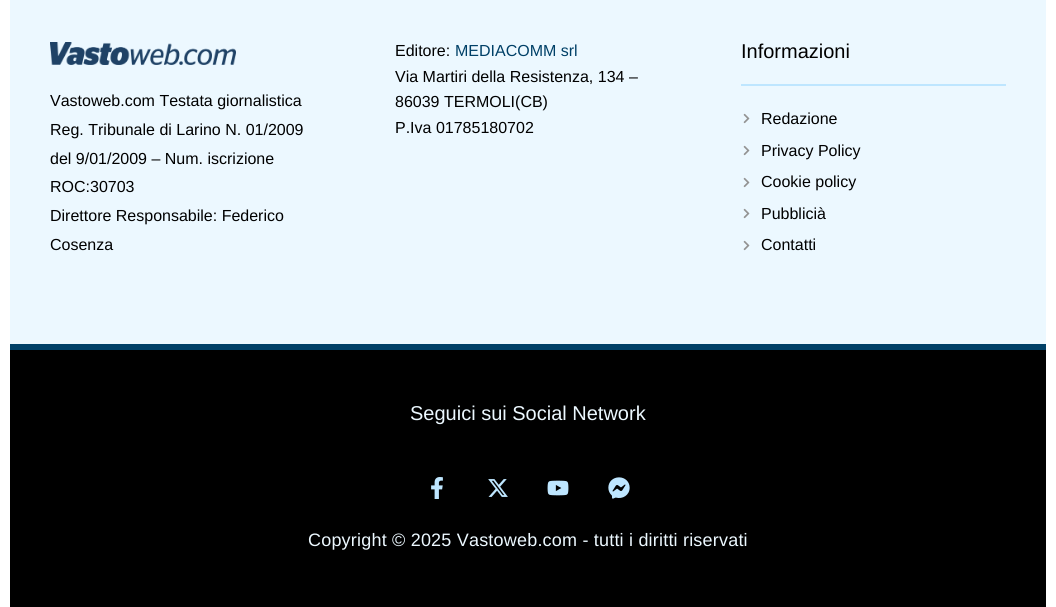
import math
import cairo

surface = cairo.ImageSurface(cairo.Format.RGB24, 1056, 607)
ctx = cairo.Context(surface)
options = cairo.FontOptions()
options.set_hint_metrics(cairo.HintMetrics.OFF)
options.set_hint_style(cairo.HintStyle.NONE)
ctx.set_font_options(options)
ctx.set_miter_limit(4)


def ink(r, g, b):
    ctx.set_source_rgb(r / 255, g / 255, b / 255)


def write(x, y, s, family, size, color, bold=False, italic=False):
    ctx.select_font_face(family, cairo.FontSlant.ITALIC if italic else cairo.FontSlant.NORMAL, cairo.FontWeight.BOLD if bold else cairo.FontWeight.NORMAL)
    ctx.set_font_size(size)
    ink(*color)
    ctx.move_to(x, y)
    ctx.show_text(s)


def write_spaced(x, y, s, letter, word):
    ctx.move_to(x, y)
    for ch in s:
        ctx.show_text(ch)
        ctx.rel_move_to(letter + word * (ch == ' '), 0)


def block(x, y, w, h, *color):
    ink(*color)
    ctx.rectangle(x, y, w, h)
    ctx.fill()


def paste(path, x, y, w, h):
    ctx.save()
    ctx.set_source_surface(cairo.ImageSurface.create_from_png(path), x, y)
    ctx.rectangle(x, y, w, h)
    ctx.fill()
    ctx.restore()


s1 = dict(family="Liberation Sans", size=16, color=(0, 0, 0))
s2 = dict(family="Liberation Sans", size=16, color=(0, 64, 103))
s3 = dict(family="Liberation Sans", size=20, color=(0, 0, 0))
s4 = dict(family="Liberation Sans", size=20, color=(236, 248, 255))

ink(255, 255, 255)
ctx.paint()
block(10, 0, 1036, 344, 236, 248, 255)
paste("pic1.png", 50, 42, 186, 23)
write(50, 106, "Vastoweb.com Testata giornalistica", **s1)
write(50, 135, "Reg. Tribunale di Larino N. 01/2009", **s1)
write(50, 164, "del 9/01/2009 – Num. iscrizione", **s1)
write(50, 192, "ROC:30703", **s1)
write(50, 221, "Direttore Responsabile: Federico", **s1)
write(50, 250, "Cosenza", **s1)
write(395, 56, "Editore:", **s1)
write(455, 56, "MEDIACOMM srl", **s2)
write(395, 82, "Via Martiri della Resistenza, 134 –", **s1)
write(395, 107, "86039 TERMOLI(CB)", **s1)
write(395, 133, "P.Iva 01785180702", **s1)
write(741, 58, "Informazioni", **s3)
block(741, 84, 265, 2, 190, 230, 255)
paste("pic2.png", 743, 113, 7, 11)
write(761, 124, "Redazione", **s1)
paste("pic2.png", 743, 145, 7, 11)
write(761, 156, "Privacy Policy", **s1)
paste("pic2.png", 743, 177, 7, 11)
write(761, 187, "Cookie policy", **s1)
paste("pic2.png", 743, 208, 7, 11)
write(761, 219, "Pubblicià", **s1)
paste("pic2.png", 743, 240, 7, 11)
write(761, 250, "Contatti", **s1)
block(10, 350, 1036, 257, 0, 0, 0)
block(10, 344, 1036, 6, 0, 64, 103)
write(410, 420, "Seguici sui Social Network", **s4)
paste("pic3.png", 431, 477, 12, 22)
paste("pic4.png", 488, 479, 20, 18)
paste("pic5.png", 547, 480, 22, 16)
paste("pic6.png", 608, 477, 22, 22)
ctx.set_font_size(18)
write_spaced(308, 546, "Copyright © 2025 Vastoweb.com - tutti i diritti riservati", 0.2, 0)
surface.write_to_png("screenshot.png")
